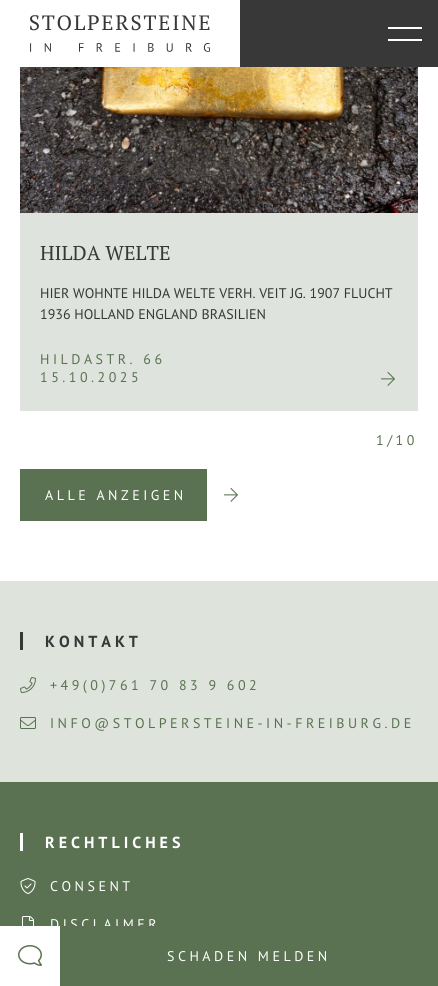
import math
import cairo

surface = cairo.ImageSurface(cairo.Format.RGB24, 438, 986)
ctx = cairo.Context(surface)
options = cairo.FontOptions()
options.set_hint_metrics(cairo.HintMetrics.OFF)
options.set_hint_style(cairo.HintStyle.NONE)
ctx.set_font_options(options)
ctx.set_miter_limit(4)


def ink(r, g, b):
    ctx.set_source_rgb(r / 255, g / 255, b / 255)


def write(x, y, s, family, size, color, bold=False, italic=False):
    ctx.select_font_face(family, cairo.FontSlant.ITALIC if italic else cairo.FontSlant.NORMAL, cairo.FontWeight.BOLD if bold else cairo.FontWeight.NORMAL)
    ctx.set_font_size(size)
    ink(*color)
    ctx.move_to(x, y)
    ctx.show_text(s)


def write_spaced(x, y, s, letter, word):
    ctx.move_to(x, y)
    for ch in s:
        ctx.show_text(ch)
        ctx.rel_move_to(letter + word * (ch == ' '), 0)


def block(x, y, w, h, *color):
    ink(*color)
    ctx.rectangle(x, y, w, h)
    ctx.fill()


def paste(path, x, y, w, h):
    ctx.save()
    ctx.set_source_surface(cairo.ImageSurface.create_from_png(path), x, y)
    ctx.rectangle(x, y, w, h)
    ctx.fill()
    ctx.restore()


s1 = dict(family="PT Serif", size=20, color=(56, 56, 56))
s2 = dict(family="PT Sans", size=14, color=(56, 56, 56))

ink(255, 255, 255)
ctx.paint()
block(240, 0, 198, 67, 56, 56, 56)
paste("pic1.png", 30, 15, 180, 37)
block(388, 27, 34, 2, 255, 255, 255)
block(388, 39, 34, 2, 255, 255, 255)
block(20, 213, 398, 198, 222, 227, 221)
paste("pic2.png", 20, 67, 398, 146)
write(40, 260, "HILDA WELTE", **s1)
write(40, 298, "HIER WOHNTE HILDA WELTE VERH. VEIT JG. 1907 FLUCHT", **s2)
write(40, 319, "1936 HOLLAND ENGLAND BRASILIEN", **s2)
ink(90, 114, 81)
write_spaced(40, 364, "HILDASTR. 66", 3.5, 0)
write_spaced(40, 382, "15.10.2025", 3.5, 0)
paste("pic3.png", 381, 372, 14, 14)
write_spaced(376, 445, "1/10", 3.5, 0)
block(20, 469, 187, 52, 90, 114, 81)
ink(255, 255, 255)
write_spaced(45, 500, "ALLE ANZEIGEN", 3.5, 0)
paste("pic4.png", 224, 488, 14, 14)
block(0, 581, 438, 201, 222, 227, 220)
block(20, 632, 3, 18, 56, 56, 56)
ctx.select_font_face("PT Sans", cairo.FontSlant.NORMAL, cairo.FontWeight.BOLD)
ctx.set_font_size(16)
write_spaced(45, 647, "KONTAKT", 4, 0)
paste("pic5.png", 20, 677, 16, 16)
ctx.select_font_face("PT Sans")
ctx.set_font_size(14)
ink(90, 114, 81)
write_spaced(50, 690, "+49(0)761 70 83 9 602", 3.5, 0)
paste("pic6.png", 20, 717, 16, 12)
write_spaced(50, 728, "INFO@STOLPERSTEINE-IN-FREIBURG.DE", 3.5, 0)
block(0, 782, 438, 144, 90, 114, 81)
block(20, 833, 3, 18, 255, 255, 255)
ctx.select_font_face("PT Sans", cairo.FontSlant.NORMAL, cairo.FontWeight.BOLD)
ctx.set_font_size(16)
write_spaced(45, 848, "RECHTLICHES", 4, 0)
paste("pic7.png", 20, 878, 16, 16)
ctx.select_font_face("PT Sans")
ctx.set_font_size(14)
write_spaced(50, 891, "CONSENT", 3.5, 0)
paste("pic8.png", 22, 916, 12, 10)
write_spaced(50, 929, "DISCLAIMER", 3.5, 0)
paste("pic9.png", 18, 945, 24, 21)
block(60, 926, 378, 60, 90, 114, 81)
ink(255, 255, 255)
write_spaced(167, 961, "SCHADEN MELDEN", 3.5, 0)
surface.write_to_png("screenshot.png")
